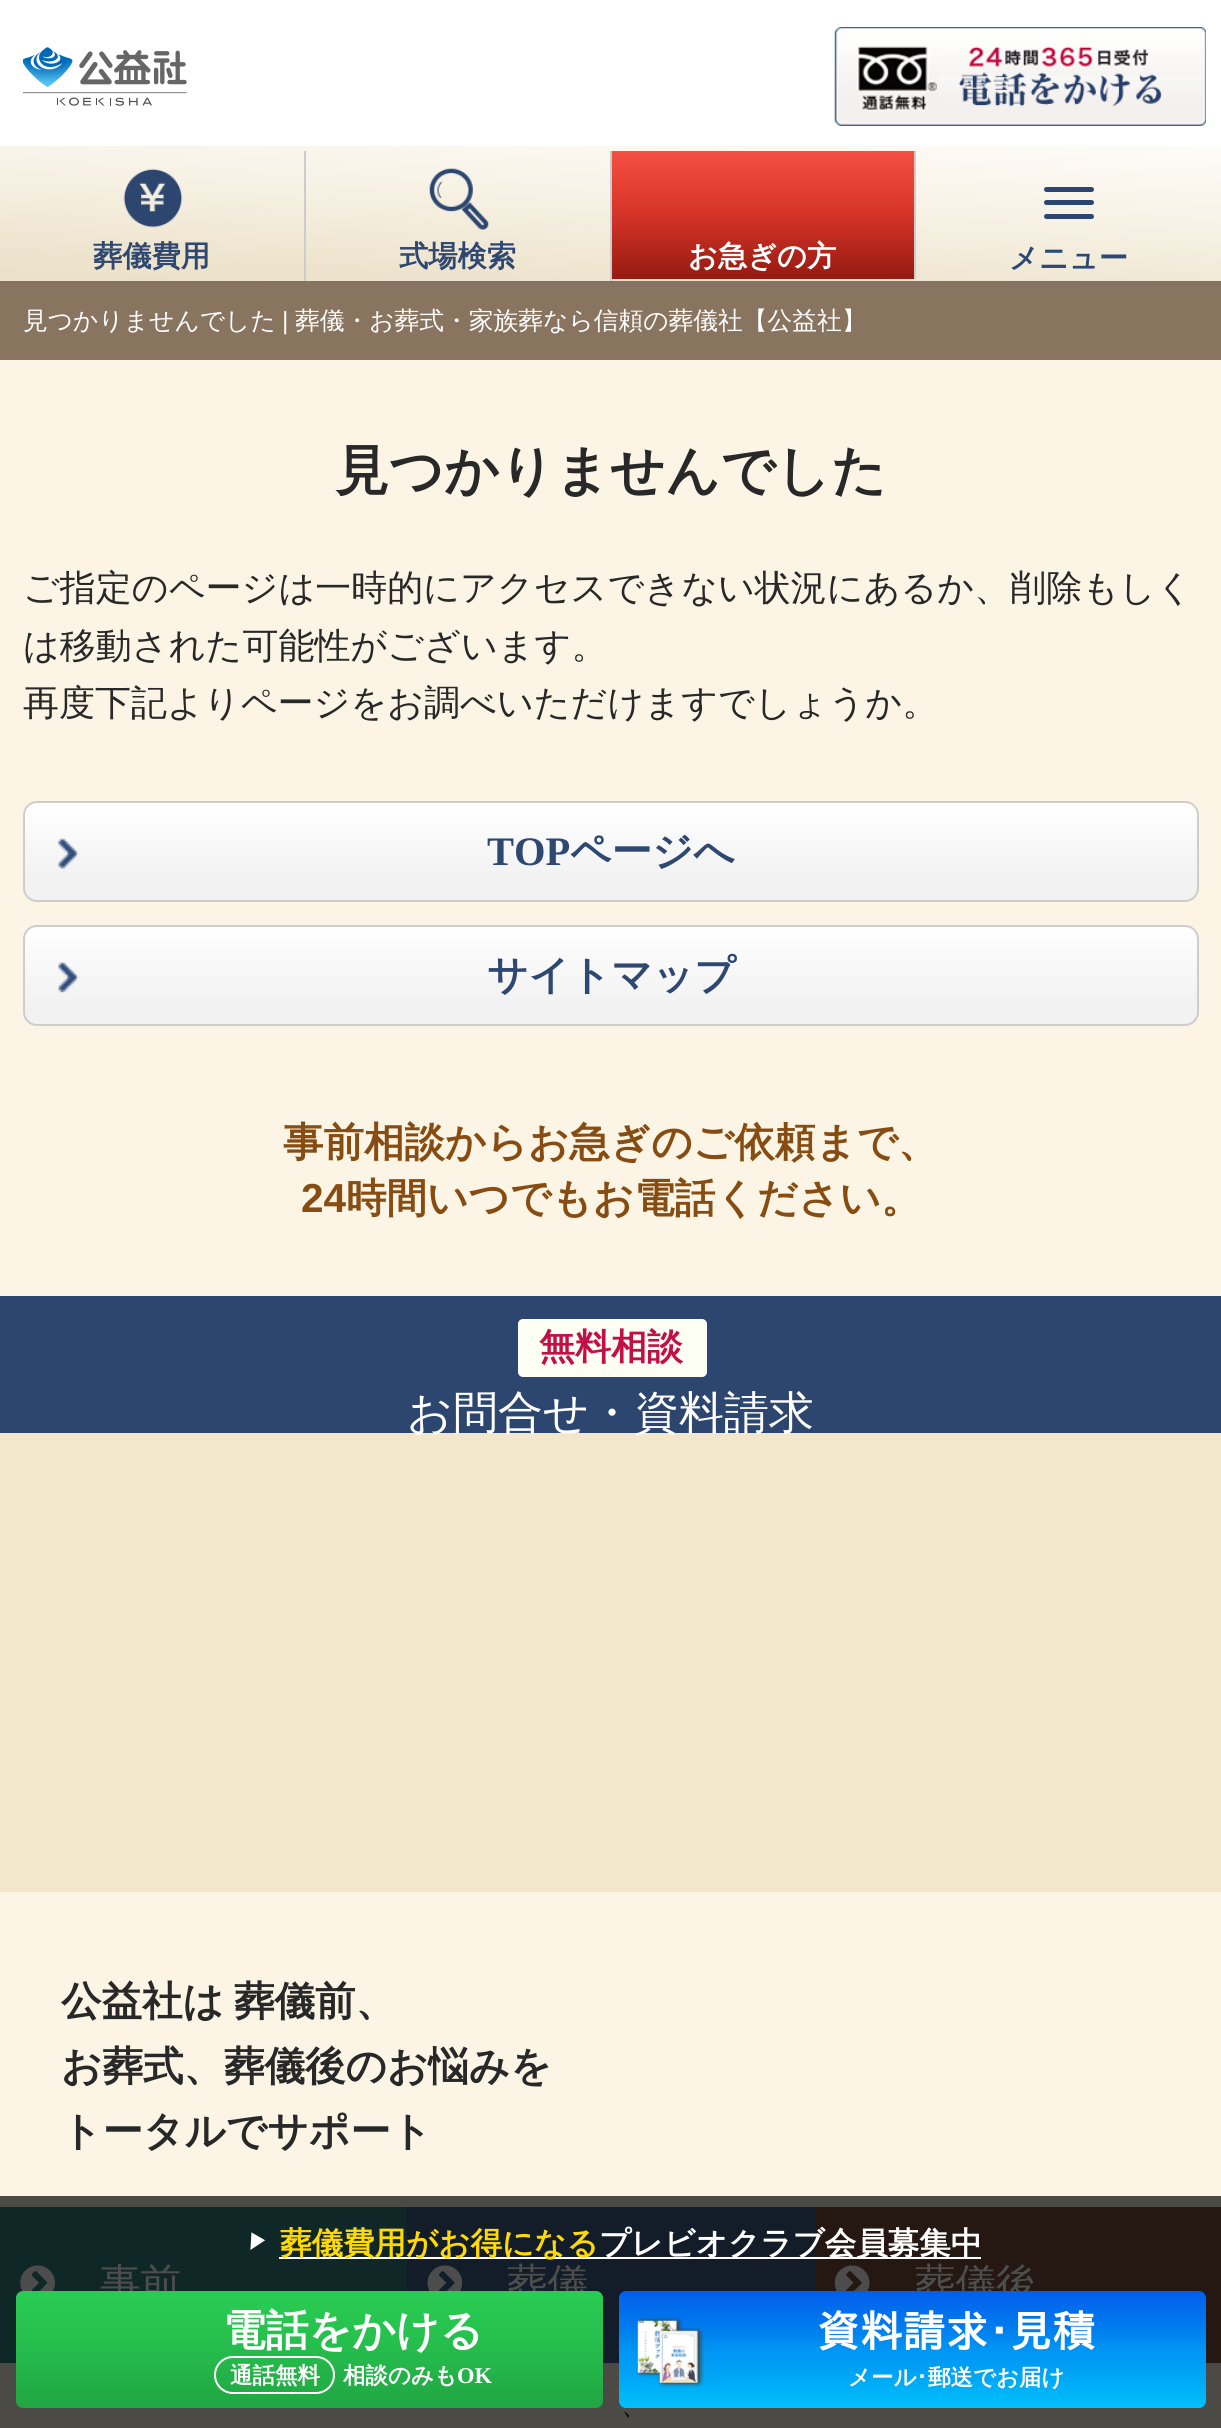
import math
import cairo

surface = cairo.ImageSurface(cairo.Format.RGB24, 1221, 2428)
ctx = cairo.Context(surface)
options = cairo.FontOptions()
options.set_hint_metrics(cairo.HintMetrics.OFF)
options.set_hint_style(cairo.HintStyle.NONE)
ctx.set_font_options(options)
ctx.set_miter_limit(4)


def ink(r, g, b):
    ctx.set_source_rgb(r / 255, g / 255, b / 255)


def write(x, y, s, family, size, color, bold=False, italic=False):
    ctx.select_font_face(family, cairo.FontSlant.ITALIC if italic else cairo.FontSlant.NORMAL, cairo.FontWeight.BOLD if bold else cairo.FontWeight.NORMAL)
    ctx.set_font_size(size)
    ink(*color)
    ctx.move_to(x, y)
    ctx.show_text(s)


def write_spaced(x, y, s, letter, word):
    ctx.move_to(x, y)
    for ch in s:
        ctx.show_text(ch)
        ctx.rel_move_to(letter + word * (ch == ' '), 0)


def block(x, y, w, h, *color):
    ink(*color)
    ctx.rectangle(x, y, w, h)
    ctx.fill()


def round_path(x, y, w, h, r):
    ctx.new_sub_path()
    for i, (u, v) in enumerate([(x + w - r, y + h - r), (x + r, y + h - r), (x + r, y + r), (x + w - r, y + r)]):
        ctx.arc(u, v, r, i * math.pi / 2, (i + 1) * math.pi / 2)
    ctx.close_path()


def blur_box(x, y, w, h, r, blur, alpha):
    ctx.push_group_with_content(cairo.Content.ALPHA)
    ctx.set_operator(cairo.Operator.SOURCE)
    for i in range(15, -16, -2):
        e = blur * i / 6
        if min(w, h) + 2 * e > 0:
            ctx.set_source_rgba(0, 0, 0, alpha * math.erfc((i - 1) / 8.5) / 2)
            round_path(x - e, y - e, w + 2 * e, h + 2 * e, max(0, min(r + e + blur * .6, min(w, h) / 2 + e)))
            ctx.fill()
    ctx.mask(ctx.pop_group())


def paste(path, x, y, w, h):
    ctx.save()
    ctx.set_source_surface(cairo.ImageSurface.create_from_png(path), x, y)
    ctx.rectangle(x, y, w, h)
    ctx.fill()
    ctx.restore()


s1 = dict(family="WenQuanYi Zen Hei", size=29.25, color=(46, 72, 114), bold=True)
s2 = dict(family="WenQuanYi Zen Hei", size=29.25, color=(255, 255, 255), bold=True)
s3 = dict(family="WenQuanYi Zen Hei Medium", size=24.75, color=(255, 255, 255))
s4 = dict(family="Liberation Sans", size=24.75, color=(255, 255, 255))
s5 = dict(family="WenQuanYi Zen Hei", size=54, color=(40, 40, 40), bold=True)
s6 = dict(family="WenQuanYi Zen Hei Medium", size=36, color=(40, 40, 40))
s7 = dict(family="Liberation Serif", size=40.5, color=(46, 72, 114), bold=True)
s8 = dict(family="WenQuanYi Zen Hei", size=40.5, color=(46, 72, 114), bold=True)
s9 = dict(family="WenQuanYi Zen Hei", size=40.5, color=(135, 76, 18), bold=True)
s10 = dict(family="Liberation Sans", size=40.5, color=(135, 76, 18), bold=True)
s11 = dict(family="WenQuanYi Zen Hei", size=36, color=(195, 15, 71), bold=True)
s12 = dict(family="WenQuanYi Zen Hei Medium", size=45, color=(255, 255, 255))
s13 = dict(family="WenQuanYi Zen Hei", size=40.5, color=(40, 40, 40), bold=True)
s14 = dict(family="WenQuanYi Zen Hei Medium", size=40.5, color=(77, 77, 77))
s15 = dict(family="WenQuanYi Zen Hei Medium", size=27, color=(12, 12, 12))
s16 = dict(family="Liberation Sans", size=27, color=(255, 255, 255), bold=True)
s17 = dict(family="WenQuanYi Zen Hei", size=31.5, color=(255, 217, 5), bold=True)
s18 = dict(family="WenQuanYi Zen Hei", size=31.5, color=(255, 255, 255), bold=True)
s19 = dict(family="WenQuanYi Zen Hei", size=42.75, color=(255, 255, 255), bold=True)
s20 = dict(family="WenQuanYi Zen Hei", size=22.5, color=(255, 255, 255), bold=True)
s21 = dict(family="Liberation Serif", size=22.5, color=(255, 255, 255), bold=True)
s22 = dict(family="IPAGothic", size=42.75, color=(255, 255, 255), bold=True)
s23 = dict(family="IPAGothic", size=22.5, color=(255, 255, 255), bold=True)

ink(252, 245, 229)
ctx.paint()
block(0, 2196, 1221, 232, 76, 74, 69)
block(0, 281, 1221, 79, 137, 116, 96)
ink(102, 102, 102)
blur_box(-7, -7, 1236, 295, 0, 5.5, 0.1)
block(0, 0, 1221, 146, 255, 255, 255)
paste("pic1.png", 23, 47, 164, 59)
paste("pic2.png", 834, 27, 372, 99)
gradient = cairo.LinearGradient(616, 115, 606, 313)
gradient.add_color_stop_rgba(0, 0.996, 0.988, 0.973, 1)
gradient.add_color_stop_rgba(0.49, 0.965, 0.941, 0.886, 1)
gradient.add_color_stop_rgba(0.86, 0.929, 0.89, 0.8, 1)
gradient.add_color_stop_rgba(1, 0.925, 0.886, 0.792, 1)
ctx.set_source(gradient)
ctx.rectangle(0, 146, 1221, 135)
ctx.fill()
paste("pic3.png", 123, 168, 60, 60)
block(304, 151, 2, 130, 204, 204, 204)
write(93, 266, "葬儀費用", **s1)
paste("pic4.png", 429, 168, 60, 62)
block(610, 151, 2, 130, 204, 204, 204)
write(399, 266, "式場検索", **s1)
gradient = cairo.LinearGradient(763, 151, 763, 279)
gradient.add_color_stop_rgba(0, 0.961, 0.31, 0.263, 1)
gradient.add_color_stop_rgba(0.49, 0.843, 0.204, 0.157, 1)
gradient.add_color_stop_rgba(1, 0.584, 0.102, 0.067, 1)
ctx.set_source(gradient)
ctx.rectangle(612, 151, 302, 128)
ctx.fill()
block(914, 151, 2, 128, 204, 204, 204)
write(688, 266, "お急ぎの方", **s2)
ink(45, 70, 112)
round_path(1044, 200, 50, 5, 2.5)
ctx.fill()
round_path(1044, 187, 50, 5, 2.5)
ctx.fill()
round_path(1044, 214, 50, 5, 2.5)
ctx.fill()
write(1009, 268, "メニュー", **s1)
write(23, 329, "見つかりませんでした", **s3)
write(282, 329, "|", **s4)
write(295, 329, "葬儀・お葬式・家族葬なら信頼の葬儀社【公益社】", **s3)
write(335, 489, "見つかりませんでした", **s5)
write(23, 600, "ご指定のページは一時的にアクセスできない状況にあるか、削除もしく", **s6)
write(23, 658, "は移動された可能性がございます。", **s6)
write(23, 715, "再度下記よりページをお調べいただけますでしょうか。", **s6)
ctx.save()
round_path(23, 801, 1176, 101, 14)
ctx.clip()
gradient = cairo.LinearGradient(611, 803, 611, 900)
gradient.add_color_stop_rgba(0, 1, 1, 1, 1)
gradient.add_color_stop_rgba(0.78, 0.949, 0.949, 0.949, 1)
ctx.set_source(gradient)
ctx.rectangle(23, 803, 1176, 97)
ctx.fill()
ctx.restore()
round_path(24, 802, 1174, 99, 13)
ink(207, 205, 202)
ctx.stroke()
paste("pic5.png", 58, 837, 21, 32)
write(487, 865, "TOP", **s7)
write(570, 865, "ページへ", **s8)
ctx.save()
round_path(23, 925, 1176, 101, 14)
ctx.clip()
gradient = cairo.LinearGradient(611, 927, 611, 1024)
gradient.add_color_stop_rgba(0, 1, 1, 1, 1)
gradient.add_color_stop_rgba(0.78, 0.949, 0.949, 0.949, 1)
ctx.set_source(gradient)
ctx.rectangle(23, 927, 1176, 97)
ctx.fill()
ctx.restore()
round_path(24, 926, 1174, 99, 13)
ink(207, 205, 202)
ctx.stroke()
paste("pic6.png", 58, 961, 21, 32)
write(487, 989, "サイトマップ", **s8)
write(283, 1156, "事前相談からお急ぎのご依頼まで、", **s9)
write(301, 1212, "24", **s10)
write(346, 1212, "時間いつでもお電話ください。", **s9)
block(0, 1433, 1221, 459, 243, 231, 203)
block(0, 1296, 1221, 137, 45, 70, 112)
ink(253, 255, 244)
round_path(518, 1319, 189, 58, 5)
ctx.fill()
write(539, 1359, "無料相談", **s11)
write(407, 1428, "お問合せ・資料請求", **s12)
ctx.select_font_face("WenQuanYi Zen Hei", cairo.FontSlant.NORMAL, cairo.FontWeight.BOLD)
ctx.set_font_size(40.5)
ink(40, 40, 40)
write_spaced(61, 2015, "公益社は 葬儀前、", 0, -2)
write(61, 2080, "お葬式、葬儀後のお悩みを", **s13)
write(61, 2145, "トータルでサポート", **s13)
block(0, 2207, 407, 156, 15, 39, 39)
paste("pic7.png", 20, 2265, 35, 27)
write(100, 2297, "事前", **s14)
block(407, 2207, 408, 156, 18, 29, 41)
paste("pic8.png", 427, 2265, 36, 26)
write(507, 2297, "葬儀", **s14)
block(815, 2207, 406, 156, 37, 23, 17)
paste("pic9.png", 834, 2265, 36, 26)
write(915, 2297, "葬儀後", **s14)
write(621, 2414, "、", **s15)
ctx.save()
ctx.translate(239, 2243)
ctx.rotate(30 * math.pi / 180)
write(0, 0, "▼", **s16)
ctx.restore()
block(279, 2257, 702, 2, 255, 255, 255)
write(280, 2254, "葬儀費用がお得になる", **s17)
write(599, 2254, "プレビオクラブ会員募集中", **s18)
gradient = cairo.LinearGradient(309, 2291, 309, 2408)
gradient.add_color_stop_rgba(0, 0.161, 0.8, 0.322, 1)
gradient.add_color_stop_rgba(0.38, 0.153, 0.757, 0.306, 1)
gradient.add_color_stop_rgba(0.77, 0.137, 0.69, 0.278, 1)
gradient.add_color_stop_rgba(1, 0.129, 0.647, 0.263, 1)
ctx.set_source(gradient)
round_path(16, 2291, 587, 117, 7)
ctx.fill()
write(223, 2345, "電話をかける", **s19)
round_path(215, 2357, 119, 36, 18)
ctx.stroke()
write(230, 2383, "通話無料", **s20)
write(343, 2383, "相談のみも", **s20)
write(457, 2383, "OK", **s21)
gradient = cairo.LinearGradient(912, 2291, 912, 2408)
gradient.add_color_stop_rgba(0, 0.004, 0.369, 0.918, 1)
gradient.add_color_stop_rgba(0.32, 0, 0.49, 0.937, 1)
gradient.add_color_stop_rgba(0.5, 0.004, 0.584, 0.953, 1)
gradient.add_color_stop_rgba(0.66, 0, 0.624, 0.961, 1)
gradient.add_color_stop_rgba(1, 0, 0.753, 0.98, 1)
ctx.set_source(gradient)
round_path(619, 2291, 587, 117, 7)
ctx.fill()
paste("pic10.png", 636, 2316, 69, 72)
write(817, 2347, "資料請求･見積", **s22)
write(848, 2385, "メール", **s20)
write(916, 2385, "･", **s23)
write(928, 2385, "郵送でお届け", **s20)
surface.write_to_png("screenshot.png")
